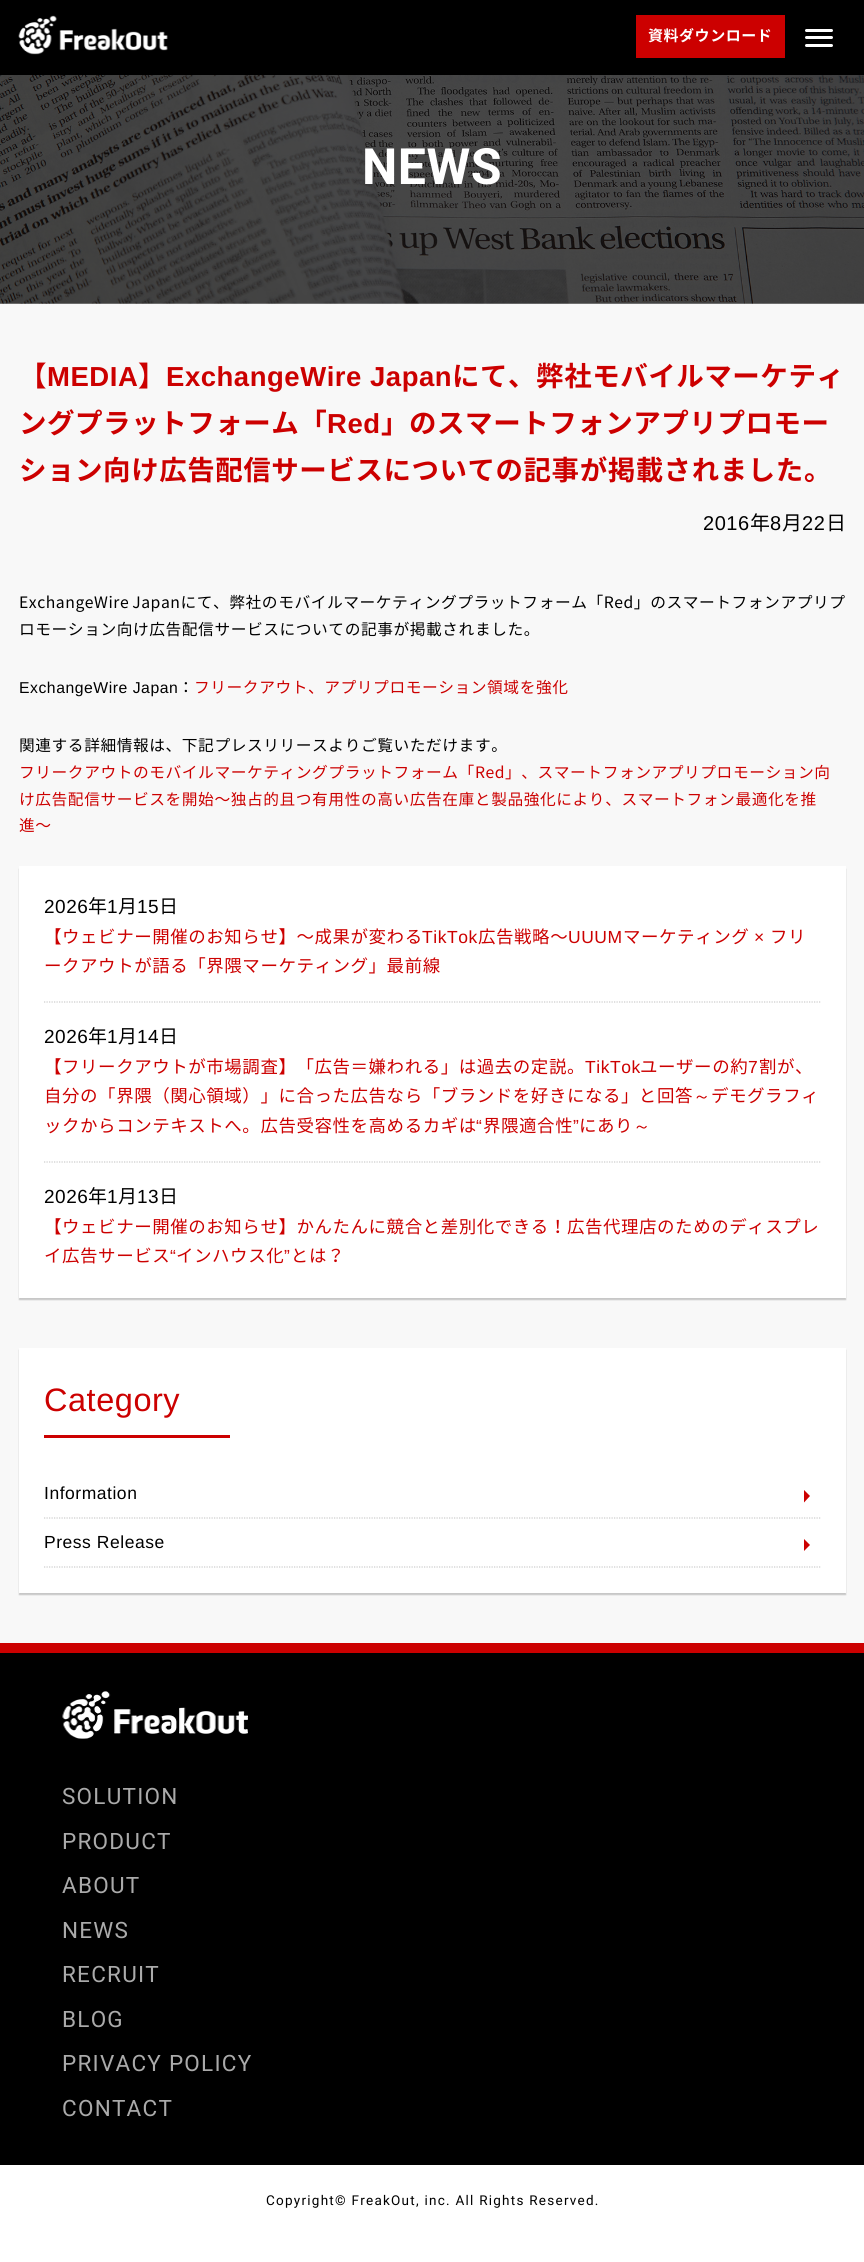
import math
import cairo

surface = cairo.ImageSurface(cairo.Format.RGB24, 864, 2262)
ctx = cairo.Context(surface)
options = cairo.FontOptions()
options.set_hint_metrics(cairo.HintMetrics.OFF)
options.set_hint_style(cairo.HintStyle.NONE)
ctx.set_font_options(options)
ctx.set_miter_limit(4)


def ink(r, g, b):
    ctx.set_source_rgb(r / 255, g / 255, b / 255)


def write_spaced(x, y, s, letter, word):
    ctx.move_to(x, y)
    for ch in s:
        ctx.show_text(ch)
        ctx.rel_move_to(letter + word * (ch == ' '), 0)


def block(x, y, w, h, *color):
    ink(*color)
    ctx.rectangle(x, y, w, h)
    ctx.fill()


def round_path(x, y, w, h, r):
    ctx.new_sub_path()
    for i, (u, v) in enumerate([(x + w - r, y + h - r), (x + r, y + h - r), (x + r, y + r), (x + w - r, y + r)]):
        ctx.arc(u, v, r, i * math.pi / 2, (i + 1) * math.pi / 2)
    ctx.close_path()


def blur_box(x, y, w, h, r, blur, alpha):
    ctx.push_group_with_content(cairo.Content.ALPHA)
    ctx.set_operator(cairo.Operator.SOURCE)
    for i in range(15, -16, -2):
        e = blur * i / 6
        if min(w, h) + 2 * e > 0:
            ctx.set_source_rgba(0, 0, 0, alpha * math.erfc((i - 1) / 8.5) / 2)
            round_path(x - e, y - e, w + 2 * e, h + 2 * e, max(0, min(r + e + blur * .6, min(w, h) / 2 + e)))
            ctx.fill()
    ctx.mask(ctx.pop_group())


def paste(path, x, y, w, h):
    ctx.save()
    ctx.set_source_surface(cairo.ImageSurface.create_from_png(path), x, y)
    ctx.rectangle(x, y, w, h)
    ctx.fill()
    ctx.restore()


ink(255, 255, 255)
ctx.paint()
block(0, 0, 864, 75, 0, 0, 0)
paste("pic1.png", 18, 15, 150, 40)
block(636, 15, 149, 43, 204, 0, 0)
ctx.select_font_face("Noto Sans JP", cairo.FontSlant.NORMAL, cairo.FontWeight.BOLD)
ctx.set_font_size(15)
ink(255, 255, 255)
write_spaced(648, 41, "資料ダウンロード", 0.53, 0)
round_path(805, 29, 28, 3, 1.5)
ctx.fill()
round_path(805, 36, 28, 3, 1.5)
ctx.fill()
round_path(805, 44, 28, 3, 1.5)
ctx.fill()
block(0, 303, 864, 1340, 248, 248, 248)
paste("pic2.png", 0, 75, 864, 229)
ctx.select_font_face("Roboto", cairo.FontSlant.NORMAL, cairo.FontWeight.BOLD)
ctx.set_font_size(50)
ink(255, 255, 255)
write_spaced(362, 184, "NEWS", 0.53, 0)
ctx.select_font_face("Noto Sans JP", cairo.FontSlant.NORMAL, cairo.FontWeight.BOLD)
ctx.set_font_size(27.5)
ink(204, 0, 0)
write_spaced(19, 386, "【", 0.53, 0)
ctx.select_font_face("Liberation Sans", cairo.FontSlant.NORMAL, cairo.FontWeight.BOLD)
write_spaced(47, 386, "MEDIA", 0.53, 0)
ctx.select_font_face("Noto Sans JP", cairo.FontSlant.NORMAL, cairo.FontWeight.BOLD)
write_spaced(138, 386, "】", 0.53, 0)
ctx.select_font_face("Liberation Sans", cairo.FontSlant.NORMAL, cairo.FontWeight.BOLD)
write_spaced(166, 386, "ExchangeWire Japan", 0.53, 0)
ctx.select_font_face("Noto Sans JP", cairo.FontSlant.NORMAL, cairo.FontWeight.BOLD)
write_spaced(452, 386, "にて、弊社モバイルマーケティ", 0.53, 0)
write_spaced(19, 433, "ングプラットフォーム「", 0.53, 0)
ctx.select_font_face("Liberation Sans", cairo.FontSlant.NORMAL, cairo.FontWeight.BOLD)
write_spaced(327, 433, "Red", 0.53, 0)
ctx.select_font_face("Noto Sans JP", cairo.FontSlant.NORMAL, cairo.FontWeight.BOLD)
write_spaced(381, 433, "」のスマートフォンアプリプロモー", 0.53, 0)
write_spaced(19, 480, "ション向け広告配信サービスについての記事が掲載されました。", 0.53, 0)
ctx.select_font_face("Liberation Sans")
ctx.set_font_size(20)
ink(0, 0, 0)
write_spaced(703, 530, "2016", 0.53, 0)
ctx.select_font_face("Noto Sans JP")
write_spaced(750, 530, "年", 0.53, 0)
ctx.select_font_face("Liberation Sans")
write_spaced(770, 530, "8", 0.53, 0)
ctx.select_font_face("Noto Sans JP")
write_spaced(782, 530, "月", 0.53, 0)
ctx.select_font_face("Liberation Sans")
write_spaced(802, 530, "22", 0.53, 0)
ctx.select_font_face("Noto Sans JP")
write_spaced(826, 530, "日", 0.53, 0)
ctx.set_font_size(15.75)
write_spaced(19, 608, "ExchangeWire Japanにて、弊社のモバイルマーケティングプラットフォーム「Red」のスマートフォンアプリプ", 0.53, -1)
write_spaced(19, 635, "ロモーション向け広告配信サービスについての記事が掲載されました。", 0.53, 0)
ctx.select_font_face("Liberation Sans")
write_spaced(19, 693, "ExchangeWire Japan", 0.53, 0)
ctx.select_font_face("Noto Sans JP")
write_spaced(178, 693, "：", 0.53, 0)
ink(204, 0, 0)
write_spaced(194, 693, "フリークアウト、アプリプロモーション領域を強化", 0.53, 0)
ink(0, 0, 0)
write_spaced(19, 751, "関連する詳細情報は、下記プレスリリースよりご覧いただけます。", 0.53, 0)
ink(204, 0, 0)
write_spaced(19, 778, "フリークアウトのモバイルマーケティングプラットフォーム「Red」、スマートフォンアプリプロモーション向", 0.53, 0)
write_spaced(19, 805, "け広告配信サービスを開始〜独占的且つ有用性の高い広告在庫と製品強化により、スマートフォン最適化を推", 0.53, 0)
write_spaced(19, 831, "進〜", 0.53, 0)
ink(0, 0, 0)
blur_box(19, 869, 827, 431, 0, 0.5, 0.2)
block(19, 866, 827, 432, 255, 255, 255)
ctx.select_font_face("Liberation Sans")
ctx.set_font_size(19)
ink(0, 0, 0)
write_spaced(44, 913, "2026", 0.53, 0)
ctx.select_font_face("Noto Sans JP")
write_spaced(88, 913, "年", 0.53, 0)
ctx.select_font_face("Liberation Sans")
write_spaced(107, 913, "1", 0.53, 0)
ctx.select_font_face("Noto Sans JP")
write_spaced(118, 913, "月", 0.53, 0)
ctx.select_font_face("Liberation Sans")
write_spaced(137, 913, "15", 0.53, 0)
ctx.select_font_face("Noto Sans JP")
write_spaced(159, 913, "日", 0.53, 0)
ctx.set_font_size(17.5)
ink(204, 0, 0)
write_spaced(44, 943, "【ウェビナー開催のお知らせ】〜成果が変わる", 0.53, 0)
ctx.select_font_face("Liberation Sans")
write_spaced(422, 943, "TikTok", 0.53, 0)
ctx.select_font_face("Noto Sans JP")
write_spaced(478, 943, "広告戦略〜", 0.53, 0)
ctx.select_font_face("Liberation Sans")
write_spaced(568, 943, "UUUM", 0.53, 0)
ctx.select_font_face("Noto Sans JP")
write_spaced(623, 943, "マーケティング", 0.53, 0)
ctx.select_font_face("Liberation Sans")
write_spaced(754, 943, "×", 0.53, 0)
ctx.select_font_face("Noto Sans JP")
write_spaced(770, 943, "フリ", 0.53, 0)
write_spaced(44, 972, "ークアウトが語る「界隈マーケティング」最前線", 0.53, 0)
ctx.new_path()
ctx.move_to(44, 1002)
ctx.line_to(821, 1002)
ink(204, 204, 204)
ctx.set_line_width(1.2)
ctx.set_dash([1.25, 1.25])
ctx.stroke()
ctx.select_font_face("Liberation Sans")
ctx.set_font_size(19)
ink(0, 0, 0)
write_spaced(44, 1043, "2026", 0.53, 0)
ctx.select_font_face("Noto Sans JP")
write_spaced(88, 1043, "年", 0.53, 0)
ctx.select_font_face("Liberation Sans")
write_spaced(107, 1043, "1", 0.53, 0)
ctx.select_font_face("Noto Sans JP")
write_spaced(118, 1043, "月", 0.53, 0)
ctx.select_font_face("Liberation Sans")
write_spaced(137, 1043, "14", 0.53, 0)
ctx.select_font_face("Noto Sans JP")
write_spaced(159, 1043, "日", 0.53, 0)
ctx.set_font_size(17.5)
ink(204, 0, 0)
write_spaced(44, 1073, "【フリークアウトが市場調査】「広告＝嫌われる」は過去の定説。", 0.53, 0)
ctx.select_font_face("Liberation Sans")
write_spaced(585, 1073, "TikTok", 0.53, 0)
ctx.select_font_face("Noto Sans JP")
write_spaced(640, 1073, "ユーザーの約", 0.53, 0)
ctx.select_font_face("Liberation Sans")
write_spaced(748, 1073, "7", 0.53, 0)
ctx.select_font_face("Noto Sans JP")
write_spaced(759, 1073, "割が、", 0.53, 0)
write_spaced(44, 1102, "自分の「界隈（関心領域）」に合った広告なら「ブランドを好きになる」と回答", 0.53, 0)
ctx.select_font_face("WenQuanYi Zen Hei Medium")
write_spaced(693, 1102, "～", 0.53, 0)
ctx.select_font_face("Noto Sans JP")
write_spaced(711, 1102, "デモグラフィ", 0.53, 0)
write_spaced(44, 1132, "ックからコンテキストへ。広告受容性を高めるカギは", 0.53, 0)
ctx.select_font_face("Liberation Sans")
write_spaced(476, 1132, "“", 0.53, 0)
ctx.select_font_face("Noto Sans JP")
write_spaced(483, 1132, "界隈適合性", 0.53, 0)
ctx.select_font_face("Liberation Sans")
write_spaced(573, 1132, "”", 0.53, 0)
ctx.select_font_face("Noto Sans JP")
write_spaced(579, 1132, "にあり", 0.53, 0)
ctx.select_font_face("WenQuanYi Zen Hei Medium")
write_spaced(633, 1132, "～", 0.53, 0)
ctx.new_path()
ctx.move_to(44, 1162)
ctx.line_to(821, 1162)
ink(204, 204, 204)
ctx.stroke()
ctx.select_font_face("Liberation Sans")
ctx.set_font_size(19)
ink(0, 0, 0)
write_spaced(44, 1203, "2026", 0.53, 0)
ctx.select_font_face("Noto Sans JP")
write_spaced(88, 1203, "年", 0.53, 0)
ctx.select_font_face("Liberation Sans")
write_spaced(107, 1203, "1", 0.53, 0)
ctx.select_font_face("Noto Sans JP")
write_spaced(118, 1203, "月", 0.53, 0)
ctx.select_font_face("Liberation Sans")
write_spaced(137, 1203, "13", 0.53, 0)
ctx.select_font_face("Noto Sans JP")
write_spaced(159, 1203, "日", 0.53, 0)
ctx.set_font_size(17.5)
ink(204, 0, 0)
write_spaced(44, 1233, "【ウェビナー開催のお知らせ】かんたんに競合と差別化できる！広告代理店のためのディスプレ", 0.53, 0)
write_spaced(44, 1262, "イ広告サービス", 0.53, 0)
ctx.select_font_face("Liberation Sans")
write_spaced(170, 1262, "“", 0.53, 0)
ctx.select_font_face("Noto Sans JP")
write_spaced(176, 1262, "インハウス化", 0.53, 0)
ctx.select_font_face("Liberation Sans")
write_spaced(284, 1262, "”", 0.53, 0)
ctx.select_font_face("Noto Sans JP")
write_spaced(291, 1262, "とは？", 0.53, 0)
ink(0, 0, 0)
blur_box(19, 1350, 827, 245, 0, 0.5, 0.2)
block(19, 1348, 827, 245, 255, 255, 255)
block(44, 1435, 186, 3, 204, 0, 0)
ctx.select_font_face("Liberation Sans")
ctx.set_font_size(32.5)
write_spaced(44, 1411, "Category", 0.53, 0)
ctx.new_path()
ctx.move_to(44, 1518)
ctx.line_to(821, 1518)
ink(204, 204, 204)
ctx.stroke()
ctx.set_font_size(17.5)
ink(0, 0, 0)
write_spaced(44, 1499, "Information", 0.53, 0)
ink(204, 0, 0)
ctx.new_path()
ctx.move_to(804, 1502.5)
ctx.line_to(804, 1490)
ctx.line_to(810, 1496)
ctx.close_path()
ctx.fill()
ctx.new_path()
ctx.move_to(44, 1567)
ctx.line_to(821, 1567)
ink(204, 204, 204)
ctx.stroke()
ink(0, 0, 0)
write_spaced(44, 1548, "Press Release", 0.53, 0)
ink(204, 0, 0)
ctx.new_path()
ctx.move_to(804, 1551)
ctx.line_to(804, 1539)
ctx.line_to(810, 1545)
ctx.close_path()
ctx.fill()
block(0, 1653, 864, 512, 0, 0, 0)
block(0, 1643, 864, 10, 204, 0, 0)
paste("pic3.png", 62, 1691, 186, 48)
ctx.select_font_face("Roboto")
ctx.set_font_size(22.5)
ink(170, 170, 170)
write_spaced(62, 1804, "SOLUTION", 1.25, 0)
write_spaced(62, 1849, "PRODUCT", 1.25, 0)
write_spaced(62, 1893, "ABOUT", 1.25, 0)
write_spaced(62, 1938, "NEWS", 1.25, 0)
write_spaced(62, 1982, "RECRUIT", 1.25, 0)
write_spaced(62, 2027, "BLOG", 1.25, 0)
write_spaced(62, 2071, "PRIVACY POLICY", 1.25, 0)
write_spaced(62, 2116, "CONTACT", 1.25, 0)
ctx.set_font_size(13.5)
ink(0, 0, 0)
write_spaced(266, 2205, "Copyright© FreakOut, inc. All Rights Reserved.", 1.25, 0)
surface.write_to_png("screenshot.png")
